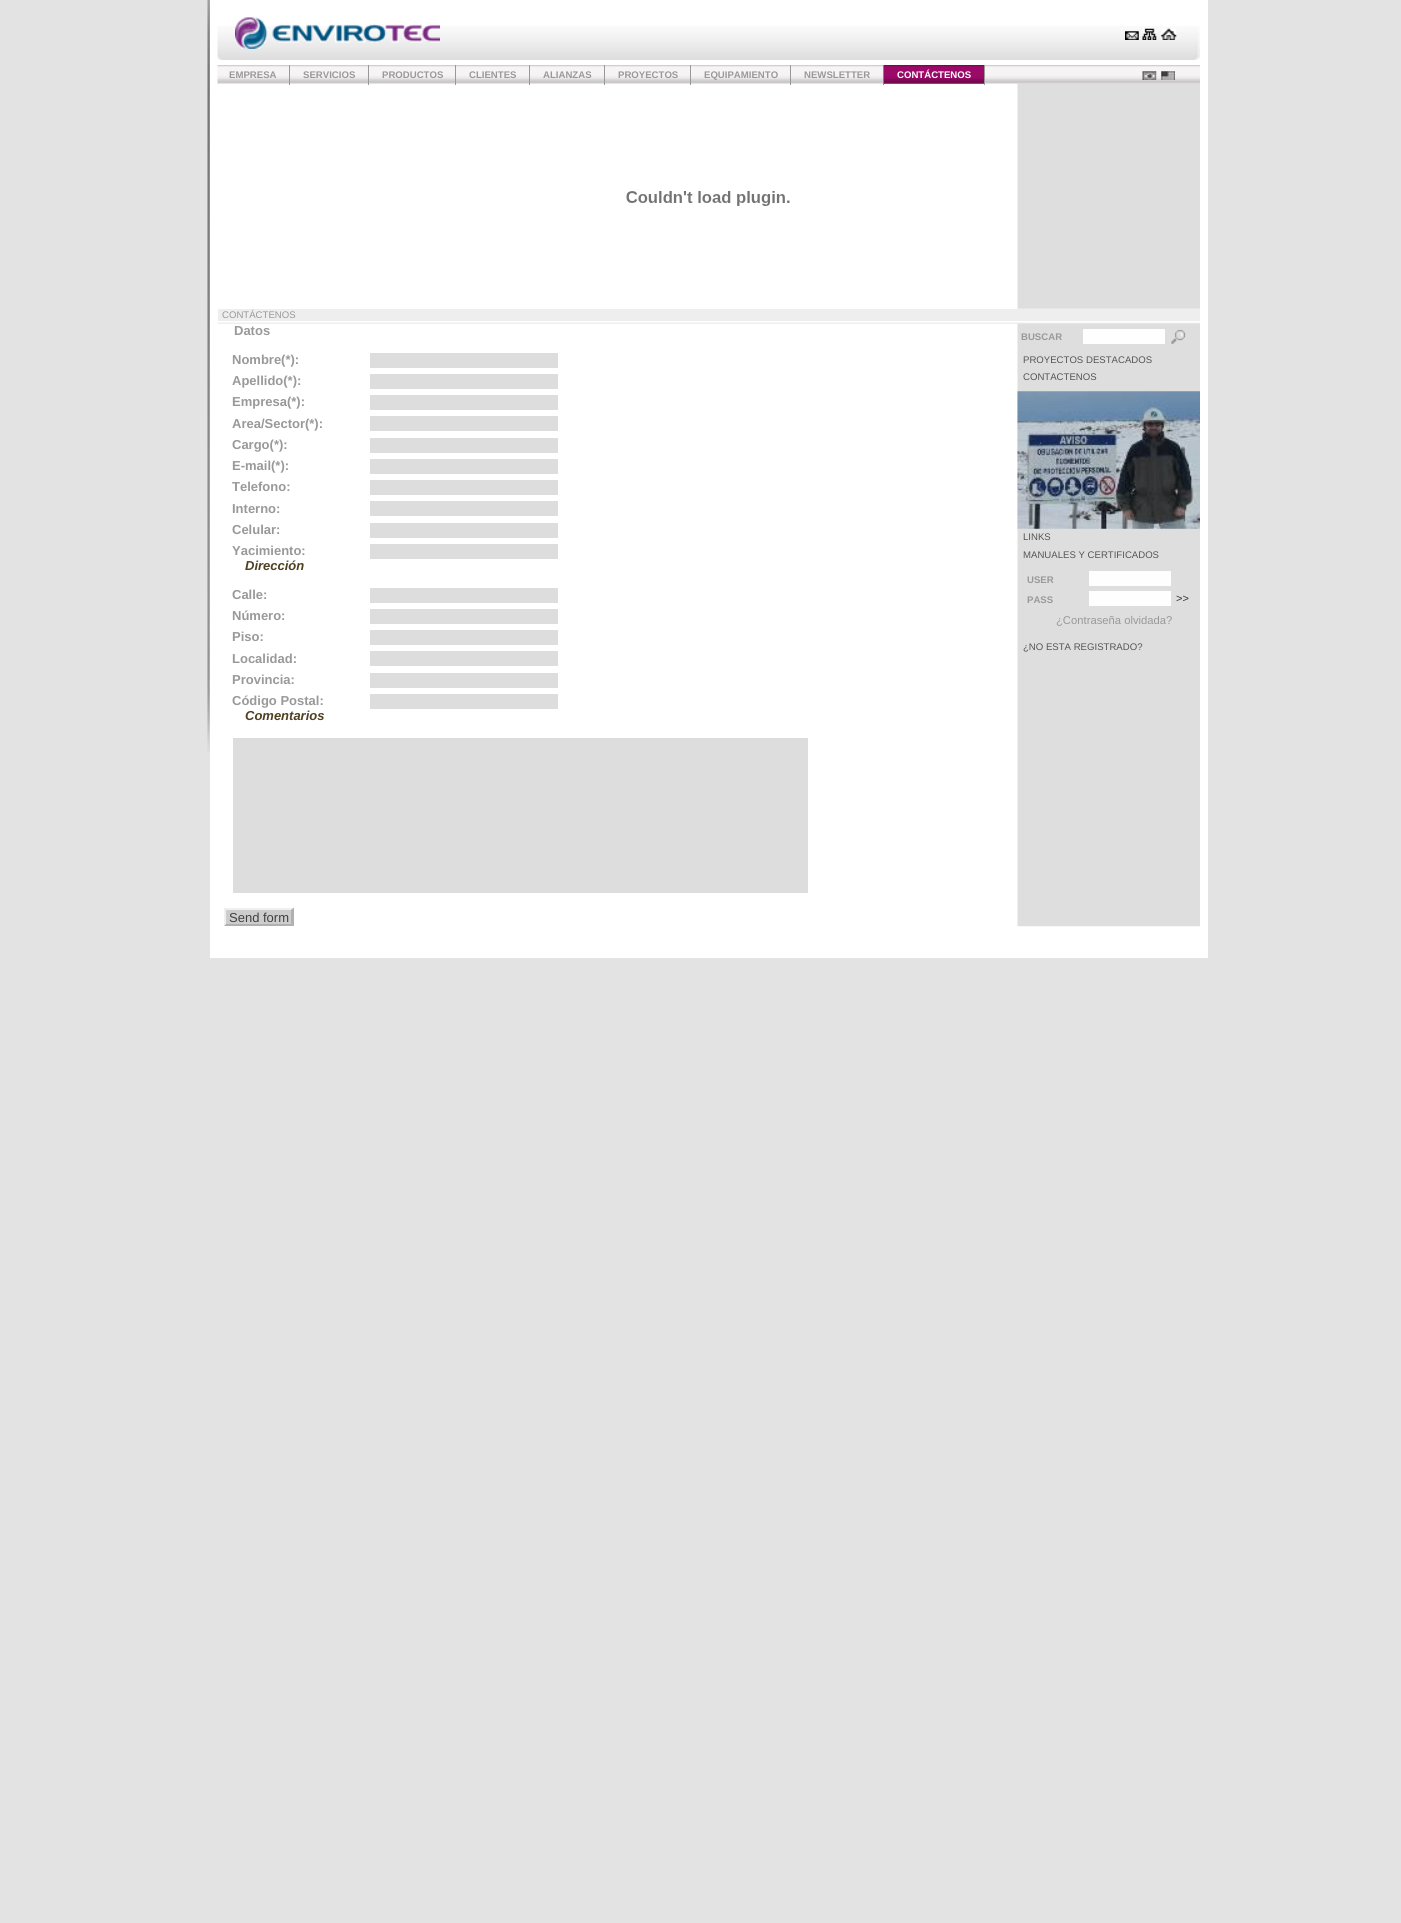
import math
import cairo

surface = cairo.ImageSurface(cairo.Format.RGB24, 1401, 1923)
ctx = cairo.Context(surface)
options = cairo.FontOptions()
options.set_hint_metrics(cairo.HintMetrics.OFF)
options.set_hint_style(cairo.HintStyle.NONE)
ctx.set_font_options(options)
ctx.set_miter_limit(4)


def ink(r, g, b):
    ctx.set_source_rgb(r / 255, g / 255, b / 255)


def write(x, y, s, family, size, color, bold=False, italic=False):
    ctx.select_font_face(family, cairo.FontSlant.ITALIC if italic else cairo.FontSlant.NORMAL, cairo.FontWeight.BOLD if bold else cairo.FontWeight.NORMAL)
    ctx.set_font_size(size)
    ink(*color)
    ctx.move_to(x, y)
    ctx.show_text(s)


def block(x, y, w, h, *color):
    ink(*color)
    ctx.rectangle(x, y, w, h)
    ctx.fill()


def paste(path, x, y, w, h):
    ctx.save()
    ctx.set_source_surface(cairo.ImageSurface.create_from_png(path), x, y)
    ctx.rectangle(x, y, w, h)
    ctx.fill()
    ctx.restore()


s1 = dict(family="Liberation Sans", size=9.6, color=(153, 153, 153), bold=True)
s2 = dict(family="Liberation Sans", size=9.6, color=(255, 255, 255), bold=True)
s3 = dict(family="Liberation Sans", size=9.6, color=(153, 153, 153))
s4 = dict(family="Liberation Sans", size=13, color=(153, 153, 153), bold=True)
s5 = dict(family="Liberation Sans", size=13, color=(78, 64, 33), bold=True, italic=True)
s6 = dict(family="Liberation Sans", size=13, color=(64, 64, 64))
s7 = dict(family="Liberation Sans", size=9.6, color=(85, 85, 85))
s8 = dict(family="Liberation Sans", size=11, color=(51, 51, 51))
s9 = dict(family="Liberation Sans", size=11.25, color=(153, 153, 153))

ink(227, 227, 227)
ctx.paint()
paste("pic1.png", 207, 0, 3, 752)
block(210, 0, 998, 958, 255, 255, 255)
paste("pic2.png", 217, 26, 983, 34)
paste("pic3.png", 235, 17, 205, 32)
paste("pic4.png", 1125, 31, 14, 9)
paste("pic5.png", 1142, 28, 15, 12)
paste("pic6.png", 1161, 28, 16, 12)
paste("pic9.png", 217, 65, 983, 19)
paste("pic7.png", 1142, 71, 15, 9)
paste("pic8.png", 1161, 71, 14, 9)
paste("pic11.png", 218, 83, 982, 844)
block(289, 65, 1, 20, 153, 153, 153)
write(229, 78, "EMPRESA", **s1)
block(368, 65, 1, 20, 153, 153, 153)
write(303, 78, "SERVICIOS", **s1)
block(455, 65, 1, 20, 153, 153, 153)
write(382, 78, "PRODUCTOS", **s1)
block(529, 65, 1, 20, 153, 153, 153)
write(469, 78, "CLIENTES", **s1)
block(604, 65, 1, 20, 153, 153, 153)
write(543, 78, "ALIANZAS", **s1)
block(690, 65, 1, 20, 153, 153, 153)
write(618, 78, "PROYECTOS", **s1)
block(790, 65, 1, 20, 153, 153, 153)
write(704, 78, "EQUIPAMIENTO", **s1)
block(883, 65, 1, 20, 153, 153, 153)
write(804, 78, "NEWSLETTER", **s1)
paste("pic10.png", 883, 65, 101, 19)
block(984, 65, 1, 20, 153, 153, 153)
write(897, 78, "CONTÁCTENOS", **s2)
paste("pic12.png", 626, 191, 164, 15)
paste("pic13.png", 217, 308, 983, 16)
block(218, 309, 982, 12, 238, 238, 238)
write(222, 318, "CONTÁCTENOS", **s3)
write(234, 335, "Datos", **s4)
write(232, 364, "Nombre(*):", **s4)
block(370, 353, 188, 15, 221, 221, 221)
write(232, 385, "Apellido(*):", **s4)
block(370, 374, 188, 15, 221, 221, 221)
write(232, 406, "Empresa(*):", **s4)
block(370, 395, 188, 15, 221, 221, 221)
write(232, 428, "Area/Sector(*):", **s4)
block(370, 416, 188, 15, 221, 221, 221)
write(232, 449, "Cargo(*):", **s4)
block(370, 438, 188, 15, 221, 221, 221)
write(232, 470, "E-mail(*):", **s4)
block(370, 459, 188, 15, 221, 221, 221)
write(232, 491, "Telefono:", **s4)
block(370, 480, 188, 15, 221, 221, 221)
write(232, 513, "Interno:", **s4)
block(370, 501, 188, 15, 221, 221, 221)
write(232, 534, "Celular:", **s4)
block(370, 523, 188, 15, 221, 221, 221)
write(232, 555, "Yacimiento:", **s4)
block(370, 544, 188, 15, 221, 221, 221)
write(245, 570, "Dirección", **s5)
write(232, 599, "Calle:", **s4)
block(370, 588, 188, 15, 221, 221, 221)
write(232, 620, "Número:", **s4)
block(370, 609, 188, 15, 221, 221, 221)
write(232, 641, "Piso:", **s4)
block(370, 630, 188, 15, 221, 221, 221)
write(232, 663, "Localidad:", **s4)
block(370, 651, 188, 15, 221, 221, 221)
write(232, 684, "Provincia:", **s4)
block(370, 673, 188, 15, 221, 221, 221)
write(232, 705, "Código Postal:", **s4)
block(370, 694, 188, 15, 221, 221, 221)
write(245, 720, "Comentarios", **s5)
block(233, 738, 575, 155, 221, 221, 221)
block(224, 908, 70, 18, 205, 205, 205)
ink(240, 240, 240)
ctx.new_path()
ctx.move_to(224, 908)
ctx.line_to(294, 908)
ctx.line_to(291, 910)
ctx.line_to(226, 910)
ctx.close_path()
ctx.fill()
ink(176, 176, 176)
ctx.new_path()
ctx.move_to(294, 907.5)
ctx.line_to(294, 926)
ctx.line_to(291, 924)
ctx.line_to(291, 910)
ctx.close_path()
ctx.fill()
ctx.new_path()
ctx.move_to(294, 926)
ctx.line_to(224, 926)
ctx.line_to(226, 924)
ctx.line_to(291, 924)
ctx.close_path()
ctx.fill()
ink(240, 240, 240)
ctx.new_path()
ctx.move_to(224, 926)
ctx.line_to(224, 907.5)
ctx.line_to(226, 910)
ctx.line_to(226, 924)
ctx.close_path()
ctx.fill()
write(229, 922, "Send form", **s6)
write(1021, 340, "BUSCAR", **s1)
block(1083, 329, 82, 15, 254, 254, 254)
paste("pic14.png", 1171, 329, 15, 15)
write(1023, 363, "PROYECTOS DESTACADOS", **s7)
write(1023, 380, "CONTACTENOS", **s7)
paste("pic15.png", 1017, 391, 183, 138)
write(1023, 540, "LINKS", **s7)
write(1023, 558, "MANUALES Y CERTIFICADOS", **s7)
write(1027, 583, "USER", **s1)
block(1089, 571, 82, 15, 254, 254, 254)
write(1027, 603, "PASS", **s1)
block(1089, 591, 82, 15, 254, 254, 254)
write(1176, 602, ">>", **s8)
write(1056, 624, "¿Contraseña olvidada?", **s9)
write(1023, 650, "¿NO ESTA REGISTRADO?", **s7)
surface.write_to_png("screenshot.png")
